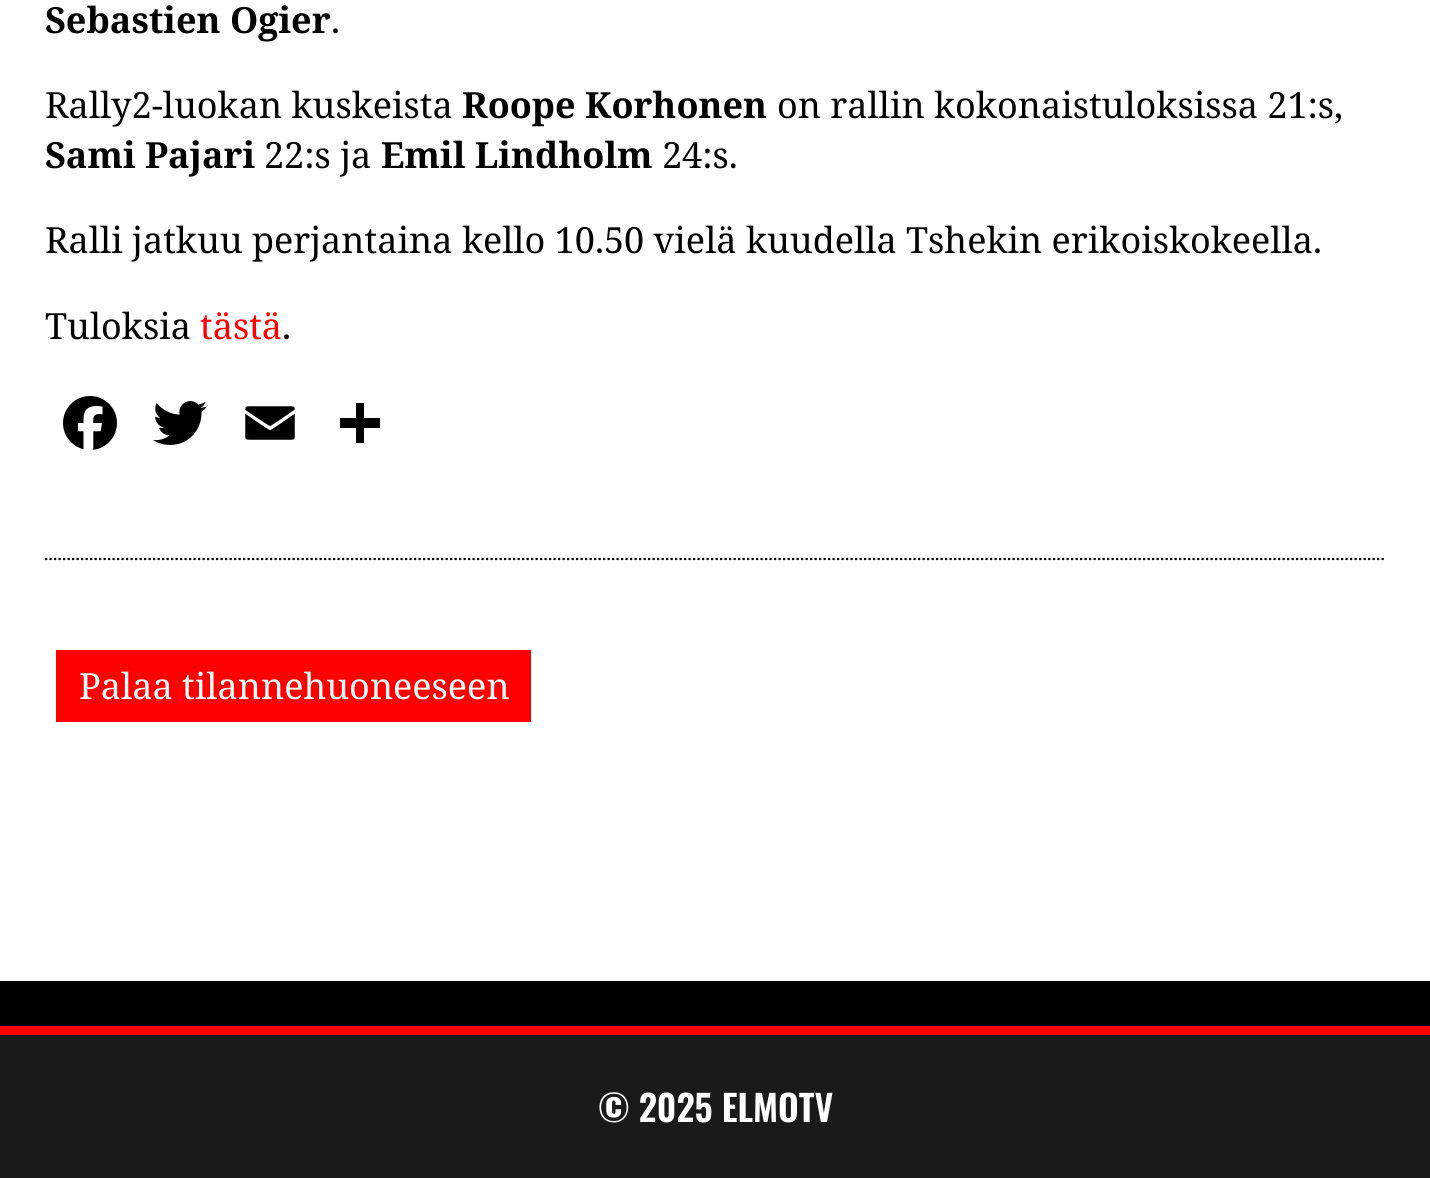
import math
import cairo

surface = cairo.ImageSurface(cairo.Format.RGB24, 1430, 1178)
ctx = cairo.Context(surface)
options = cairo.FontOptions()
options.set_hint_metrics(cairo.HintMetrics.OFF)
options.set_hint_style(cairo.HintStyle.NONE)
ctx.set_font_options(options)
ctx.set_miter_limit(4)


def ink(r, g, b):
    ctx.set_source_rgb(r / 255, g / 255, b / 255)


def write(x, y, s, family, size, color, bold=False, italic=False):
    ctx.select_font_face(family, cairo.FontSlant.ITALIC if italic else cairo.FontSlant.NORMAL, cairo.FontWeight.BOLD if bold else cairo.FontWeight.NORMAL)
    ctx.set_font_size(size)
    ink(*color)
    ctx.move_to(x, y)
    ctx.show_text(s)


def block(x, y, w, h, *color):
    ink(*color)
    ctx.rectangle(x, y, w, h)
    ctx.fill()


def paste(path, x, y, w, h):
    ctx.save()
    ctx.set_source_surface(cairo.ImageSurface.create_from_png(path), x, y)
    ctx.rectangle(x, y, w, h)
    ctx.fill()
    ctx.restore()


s1 = dict(family="Noto Serif", size=36, color=(0, 0, 0), bold=True)
s2 = dict(family="Noto Serif", size=36, color=(0, 0, 0))
s3 = dict(family="Noto Serif", size=36, color=(255, 0, 0))
s4 = dict(family="Noto Serif", size=36, color=(255, 255, 255))
s5 = dict(family="Oswald SemiBold", size=36, color=(255, 255, 255))

ink(0, 0, 0)
ctx.paint()
block(0, 0, 1430, 981, 255, 255, 255)
ctx.new_path()
ctx.move_to(45, 559)
ctx.line_to(1386, 559)
ink(0, 0, 0)
ctx.set_line_width(2.2)
ctx.set_dash([2.25, 2.25])
ctx.stroke()
write(45, 33, "Sebastien Ogier", **s1)
write(331, 33, ".", **s2)
write(45, 118, "Rally2-luokan kuskeista", **s2)
write(462, 118, "Roope Korhonen", **s1)
write(777, 118, "on rallin kokonaistuloksissa 21:s,", **s2)
write(45, 168, "Sami Pajari", **s1)
write(264, 168, "22:s ja", **s2)
write(381, 168, "Emil Lindholm", **s1)
write(662, 168, "24:s.", **s2)
write(45, 253, "Ralli jatkuu perjantaina kello 10.50 vielä kuudella Tshekin erikoiskokeella.", **s2)
write(45, 339, "Tuloksia", **s2)
write(200, 339, "tästä", **s3)
write(282, 339, ".", **s2)
paste("pic1.png", 63, 396, 54, 54)
paste("pic2.png", 153, 401, 54, 44)
paste("pic3.png", 245, 406, 50, 34)
block(356, 403, 8, 40, 0, 0, 0)
block(340, 418, 40, 10, 0, 0, 0)
block(56, 650, 475, 72, 255, 0, 0)
write(79, 699, "Palaa tilannehuoneeseen", **s4)
block(0, 1035, 1430, 143, 27, 26, 26)
block(0, 1026, 1430, 9, 255, 0, 0)
write(598, 1122, "© 2025 ELMOTV", **s5)
surface.write_to_png("screenshot.png")
